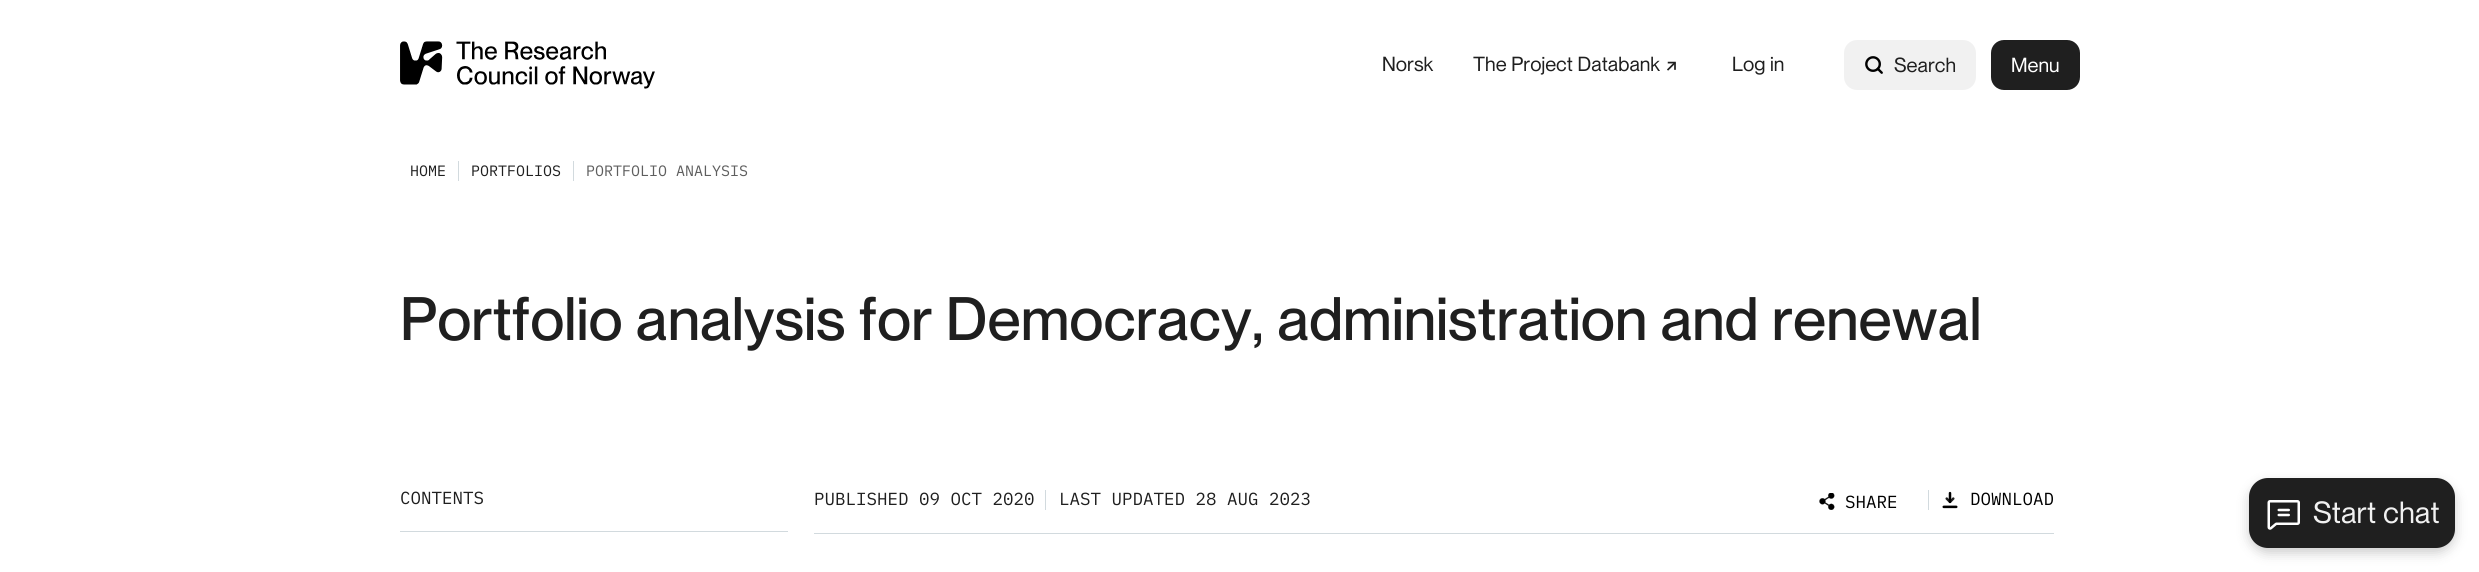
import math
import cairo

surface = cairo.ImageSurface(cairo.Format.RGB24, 2479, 572)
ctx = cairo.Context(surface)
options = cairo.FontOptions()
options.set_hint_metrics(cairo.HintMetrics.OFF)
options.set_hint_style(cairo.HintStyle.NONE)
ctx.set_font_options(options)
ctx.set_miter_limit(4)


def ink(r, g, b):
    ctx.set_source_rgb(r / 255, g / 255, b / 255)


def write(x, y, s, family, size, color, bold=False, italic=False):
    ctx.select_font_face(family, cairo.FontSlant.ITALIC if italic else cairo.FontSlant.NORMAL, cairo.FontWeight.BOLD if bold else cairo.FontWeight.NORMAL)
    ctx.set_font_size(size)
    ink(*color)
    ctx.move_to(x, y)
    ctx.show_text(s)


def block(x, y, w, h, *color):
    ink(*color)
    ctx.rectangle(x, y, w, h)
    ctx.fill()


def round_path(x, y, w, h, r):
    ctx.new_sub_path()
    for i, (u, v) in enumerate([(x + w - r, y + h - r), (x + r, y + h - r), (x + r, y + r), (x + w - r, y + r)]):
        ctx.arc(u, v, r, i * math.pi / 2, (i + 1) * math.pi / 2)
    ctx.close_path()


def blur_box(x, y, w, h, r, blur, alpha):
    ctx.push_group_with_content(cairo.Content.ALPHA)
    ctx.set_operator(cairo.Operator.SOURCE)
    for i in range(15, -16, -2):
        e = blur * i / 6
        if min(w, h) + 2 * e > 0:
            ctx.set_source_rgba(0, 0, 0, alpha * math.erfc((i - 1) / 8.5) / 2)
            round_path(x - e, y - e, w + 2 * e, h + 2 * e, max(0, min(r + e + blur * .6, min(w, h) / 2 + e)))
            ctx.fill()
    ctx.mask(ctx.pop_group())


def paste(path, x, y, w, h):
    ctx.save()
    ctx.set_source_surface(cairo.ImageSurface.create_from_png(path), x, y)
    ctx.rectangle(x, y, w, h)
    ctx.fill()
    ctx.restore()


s1 = dict(family="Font", size=20, color=(31, 31, 31))
s2 = dict(family="Font", size=20, color=(255, 255, 255))
s3 = dict(family="IBM Plex Mono", size=15, color=(31, 31, 31))
s4 = dict(family="IBM Plex Mono", size=15, color=(94, 94, 94))
s5 = dict(family="Font Medium", size=60, color=(31, 31, 31))
s6 = dict(family="IBM Plex Mono", size=17.5, color=(31, 31, 31))
s7 = dict(family="IBM Plex Mono", size=17.5, color=(0, 0, 0))
s8 = dict(family="Font", size=30, color=(241, 241, 241))

ink(255, 255, 255)
ctx.paint()
paste("pic1.png", 400, 41, 255, 48)
write(1382, 71, "Norsk", **s1)
write(1473, 71, "The Project Databank", **s1)
paste("pic2.png", 1667, 61, 9, 10)
write(1732, 71, "Log in", **s1)
ink(241, 241, 241)
round_path(1844, 40, 132, 50, 13)
ctx.fill()
paste("pic3.png", 1865, 56, 18, 18)
write(1894, 72, "Search", **s1)
round_path(1991, 40, 89, 50, 13)
ctx.fill()
write(2011, 72, "Menu", **s2)
write(410, 176, "HOME", **s3)
block(458, 161, 1, 20, 210, 218, 222)
write(471, 176, "PORTFOLIOS", **s3)
block(573, 161, 1, 20, 210, 218, 222)
write(586, 176, "PORTFOLIO ANALYSIS", **s4)
write(400, 340, "Portfolio analysis for Democracy, administration and renewal", **s5)
block(400, 531, 388, 1, 210, 218, 222)
write(400, 504, "CONTENTS", **s6)
block(814, 533, 1240, 1, 210, 218, 222)
write(814, 505, "PUBLISHED 09 OCT 2020", **s6)
block(1045, 490, 1, 20, 210, 218, 222)
write(1059, 505, "LAST UPDATED 28 AUG 2023", **s6)
paste("pic4.png", 1819, 493, 16, 17)
write(1845, 508, "SHARE", **s7)
block(1928, 490, 1, 20, 210, 218, 222)
paste("pic5.png", 1942, 491, 16, 18)
write(1970, 505, "DOWNLOAD", **s7)
ink(0, 0, 0)
blur_box(2249, 483, 206, 70, 19, 6, 0.2)
ink(31, 31, 31)
round_path(2249, 478, 206, 70, 19)
ctx.fill()
paste("pic6.png", 2267, 500, 33, 30)
write(2313, 523, "Start chat", **s8)
surface.write_to_png("screenshot.png")
